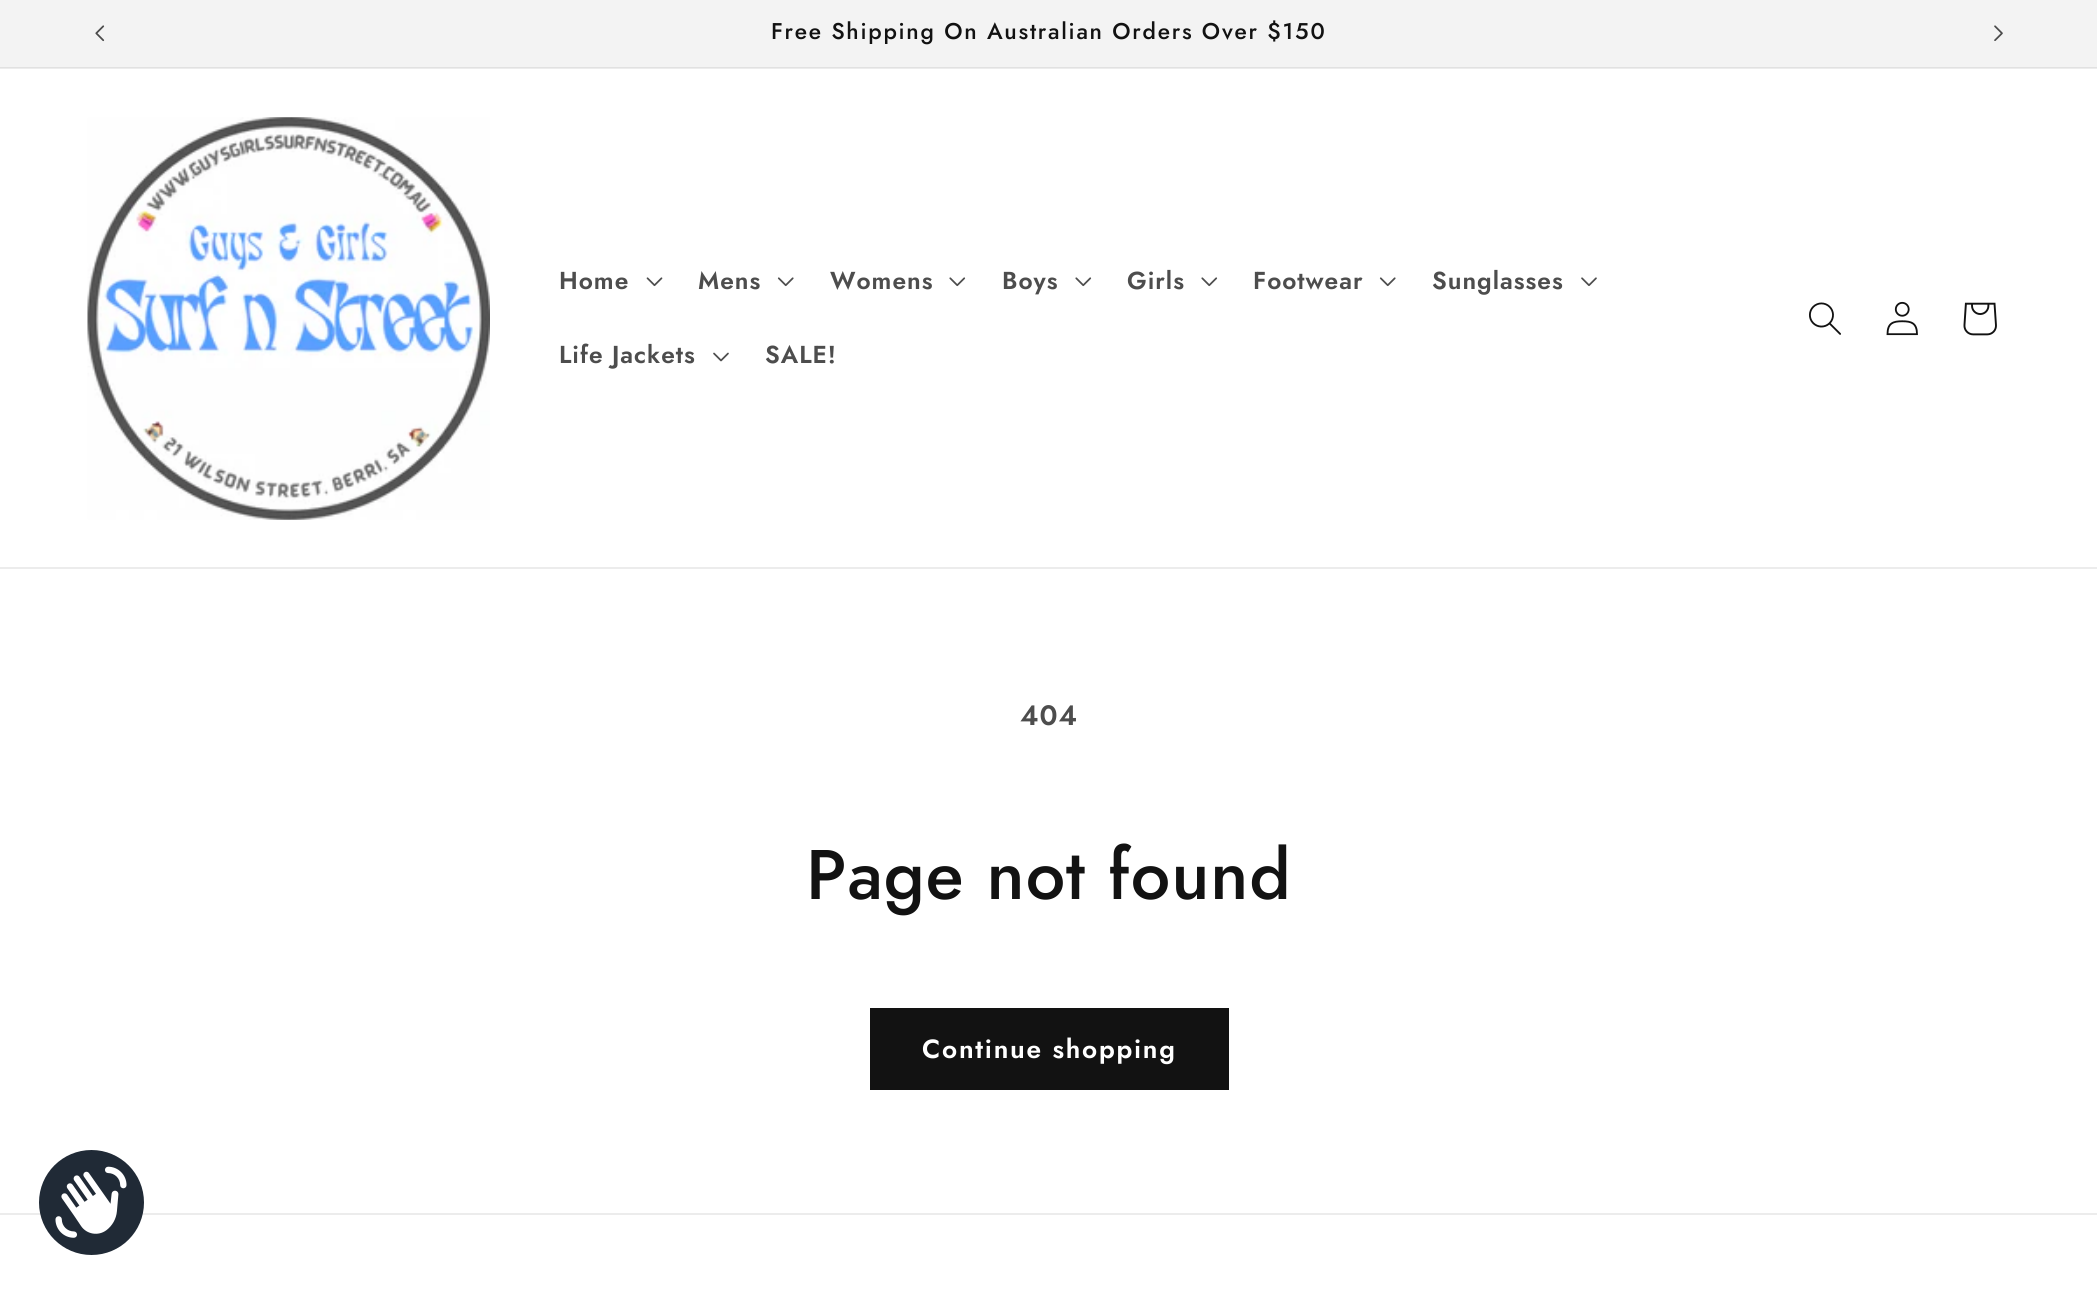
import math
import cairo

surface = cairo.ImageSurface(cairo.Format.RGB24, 2097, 1291)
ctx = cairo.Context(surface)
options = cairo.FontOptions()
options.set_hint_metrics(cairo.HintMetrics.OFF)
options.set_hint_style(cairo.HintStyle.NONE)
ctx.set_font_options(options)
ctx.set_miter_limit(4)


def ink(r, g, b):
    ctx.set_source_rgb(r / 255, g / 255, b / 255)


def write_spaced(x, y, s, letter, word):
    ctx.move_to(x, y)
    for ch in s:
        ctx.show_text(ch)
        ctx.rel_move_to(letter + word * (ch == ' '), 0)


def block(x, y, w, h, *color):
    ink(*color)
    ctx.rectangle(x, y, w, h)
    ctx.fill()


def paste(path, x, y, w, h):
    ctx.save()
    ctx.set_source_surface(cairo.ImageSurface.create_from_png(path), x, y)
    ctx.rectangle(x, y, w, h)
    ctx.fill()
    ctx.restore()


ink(255, 255, 255)
ctx.paint()
block(0, 68, 2097, 1, 236, 236, 236)
block(0, 0, 2097, 67, 243, 243, 243)
block(0, 67, 2097, 1, 225, 225, 225)
paste("pic1.png", 95, 25, 10, 17)
ctx.select_font_face("Jost Medium")
ctx.set_font_size(22.75)
ink(18, 18, 18)
write_spaced(771, 39, "Free Shipping On Australian Orders Over $150", 1.75, 0)
paste("pic2.png", 1994, 25, 9, 16)
block(0, 567, 2097, 2, 236, 236, 236)
paste("pic3.png", 87, 117, 403, 403)
ctx.select_font_face("Jost SemiBold")
ctx.set_font_size(24.5)
ink(77, 77, 77)
write_spaced(559, 289, "Home", 1, 0)
paste("pic4.png", 646, 277, 17, 10)
write_spaced(698, 289, "Mens", 1, 0)
paste("pic5.png", 777, 277, 17, 10)
write_spaced(830, 289, "Womens", 1, 0)
paste("pic6.png", 949, 277, 17, 10)
write_spaced(1002, 289, "Boys", 1, 0)
paste("pic6.png", 1075, 277, 17, 10)
write_spaced(1127, 289, "Girls", 1, 0)
paste("pic6.png", 1201, 277, 17, 10)
write_spaced(1253, 289, "Footwear", 1, 0)
paste("pic5.png", 1379, 277, 17, 10)
write_spaced(1432, 289, "Sunglasses", 1, 0)
paste("pic7.png", 1581, 277, 16, 9)
write_spaced(559, 363, "Life Jackets", 1, 0)
paste("pic8.png", 713, 352, 16, 10)
write_spaced(765, 363, "SALE!", 1, 0)
paste("pic9.png", 1809, 302, 32, 33)
paste("pic10.png", 1886, 301, 32, 35)
paste("pic11.png", 1963, 302, 34, 34)
ctx.set_font_size(28)
write_spaced(1020, 725, "404", 1, 0)
ctx.select_font_face("Jost Medium")
ctx.set_font_size(70)
ink(18, 18, 18)
write_spaced(806, 899, "Page not found", 1, 0)
block(870, 1008, 359, 82, 18, 18, 18)
ctx.select_font_face("Jost SemiBold")
ctx.set_font_size(26.25)
ink(255, 255, 255)
write_spaced(922, 1058, "Continue shopping", 1.75, 0)
block(0, 1213, 2097, 2, 236, 236, 236)
ink(32, 42, 54)
ctx.new_path()
ctx.arc(91.5, 1202.5, 52.5, 0, 2 * math.pi)
ctx.fill()
paste("pic12.png", 55, 1166, 72, 72)
surface.write_to_png("screenshot.png")
